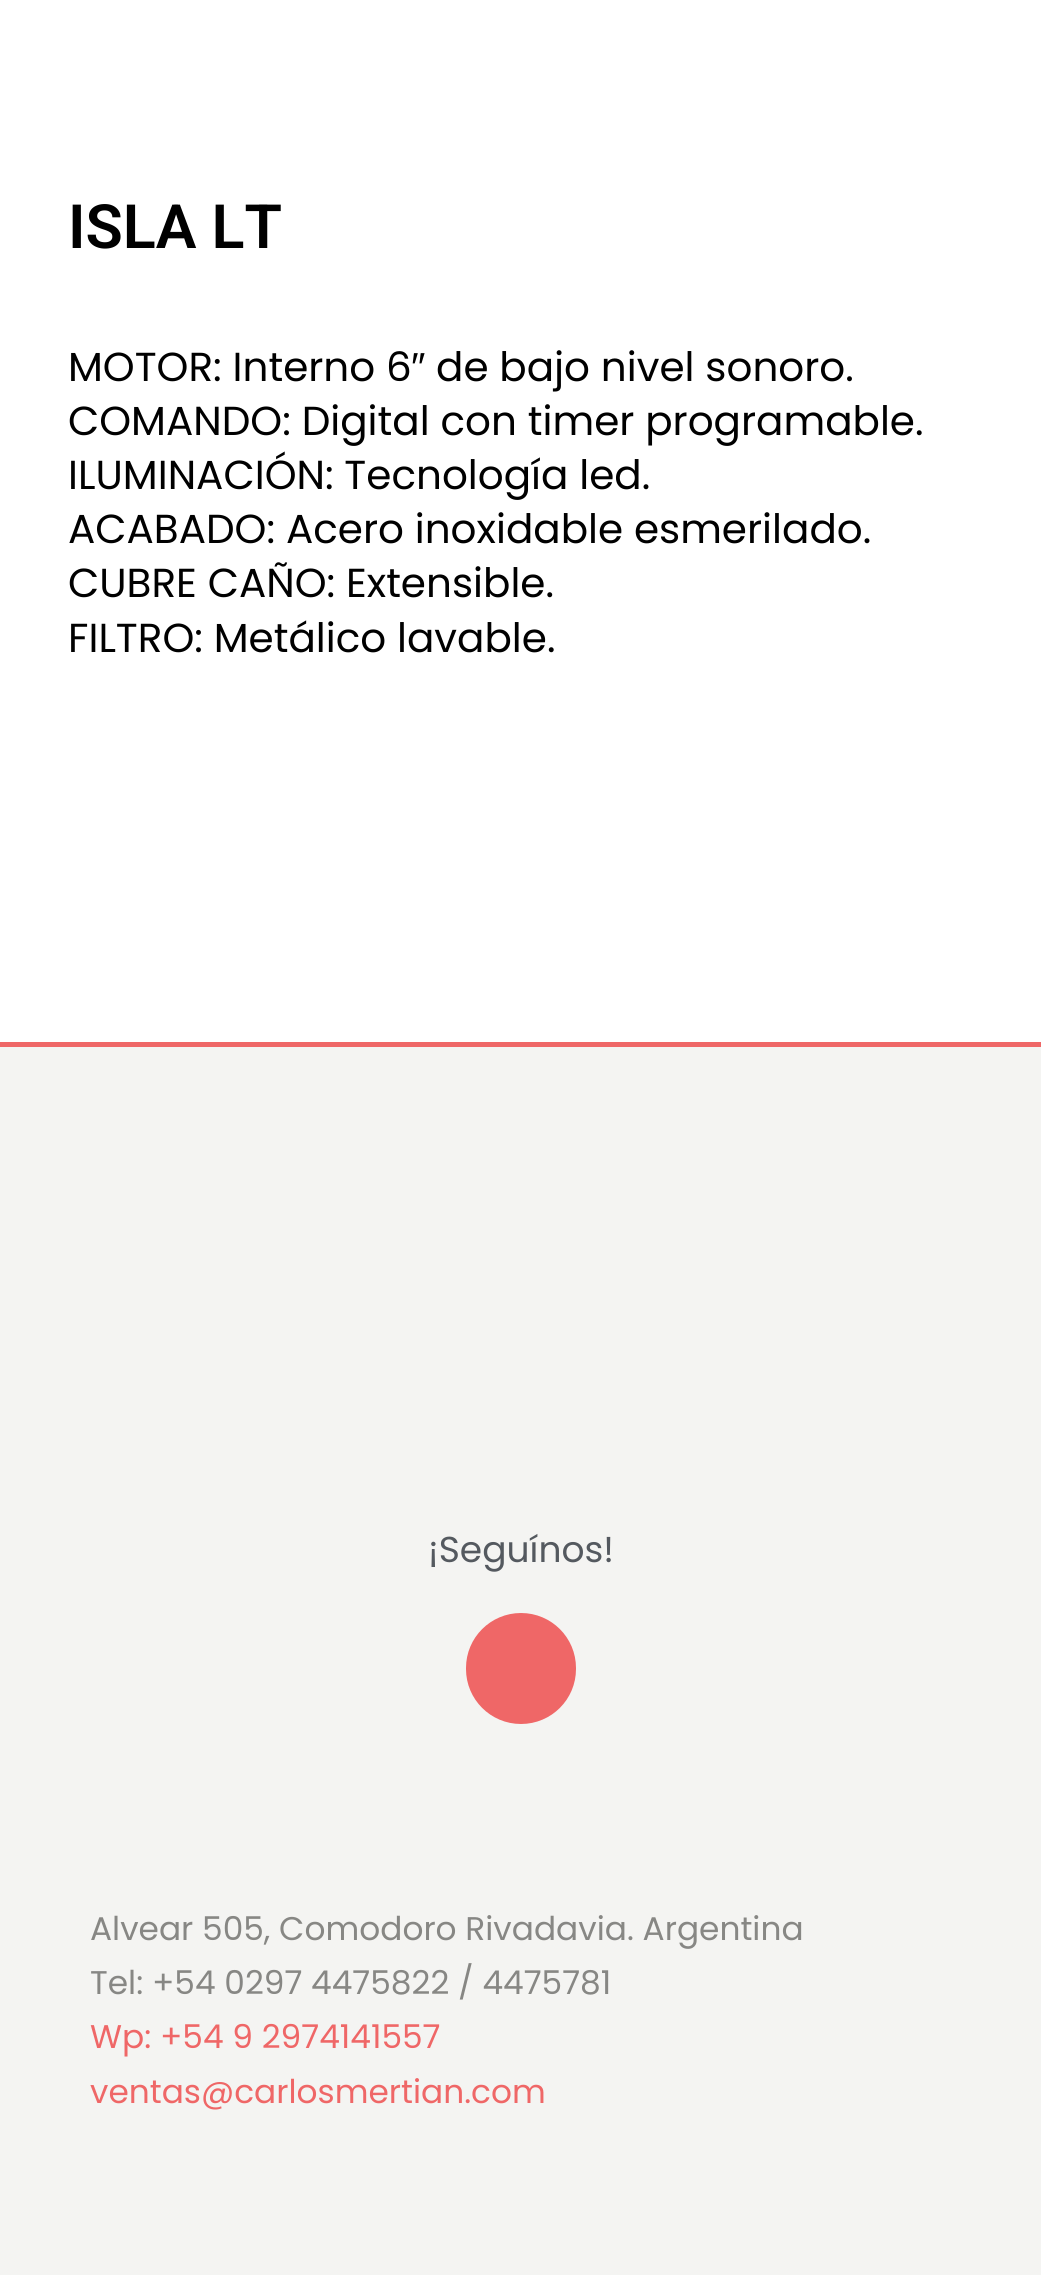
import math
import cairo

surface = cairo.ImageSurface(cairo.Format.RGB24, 1041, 2275)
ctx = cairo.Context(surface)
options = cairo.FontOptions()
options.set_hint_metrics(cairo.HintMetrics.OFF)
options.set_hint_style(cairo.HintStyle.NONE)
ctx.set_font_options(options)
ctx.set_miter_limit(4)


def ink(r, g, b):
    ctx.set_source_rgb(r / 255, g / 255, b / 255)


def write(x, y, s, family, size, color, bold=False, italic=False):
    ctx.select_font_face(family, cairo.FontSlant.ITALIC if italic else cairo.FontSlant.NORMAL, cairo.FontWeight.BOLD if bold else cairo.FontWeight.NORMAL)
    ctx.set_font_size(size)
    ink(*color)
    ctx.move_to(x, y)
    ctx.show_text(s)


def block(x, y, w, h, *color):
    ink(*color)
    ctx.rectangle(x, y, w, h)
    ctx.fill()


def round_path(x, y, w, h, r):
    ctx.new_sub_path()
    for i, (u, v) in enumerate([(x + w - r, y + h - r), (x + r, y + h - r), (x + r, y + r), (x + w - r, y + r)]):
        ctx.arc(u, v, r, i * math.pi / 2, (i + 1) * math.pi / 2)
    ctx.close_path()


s1 = dict(family="Roboto SemiBold", size=61, color=(0, 0, 0))
s2 = dict(family="Poppins", size=40.5, color=(0, 0, 0))
s3 = dict(family="Liberation Sans", size=40.5, color=(0, 0, 0))
s4 = dict(family="Poppins", size=36, color=(84, 89, 95))
s5 = dict(family="Poppins", size=32.8, color=(135, 135, 132))
s6 = dict(family="Poppins", size=32.8, color=(239, 103, 103))

ink(255, 255, 255)
ctx.paint()
write(68, 248, "ISLA LT", **s1)
write(68, 381, "MOTOR: Interno 6", **s2)
write(411, 381, "″", **s3)
write(436, 381, "de bajo nivel sonoro.", **s2)
write(68, 435, "COMANDO: Digital con timer programable.", **s2)
write(68, 489, "ILUMINACIÓN: Tecnología led.", **s2)
write(68, 543, "ACABADO: Acero inoxidable esmerilado.", **s2)
write(68, 597, "CUBRE CAÑO: Extensible.", **s2)
write(68, 652, "FILTRO: Metálico lavable.", **s2)
block(0, 1047, 1041, 1228, 244, 244, 242)
block(0, 1042, 1041, 5, 239, 103, 103)
write(428, 1562, "¡Seguínos!", **s4)
ink(239, 103, 103)
round_path(466, 1613, 110, 111, 55)
ctx.fill()
write(90, 1940, "Alvear 505, Comodoro Rivadavia. Argentina", **s5)
write(90, 1994, "Tel: +54 0297 4475822 / 4475781", **s5)
write(90, 2048, "Wp: +54 9 2974141557", **s6)
write(90, 2103, "ventas@carlosmertian.com", **s6)
surface.write_to_png("screenshot.png")
